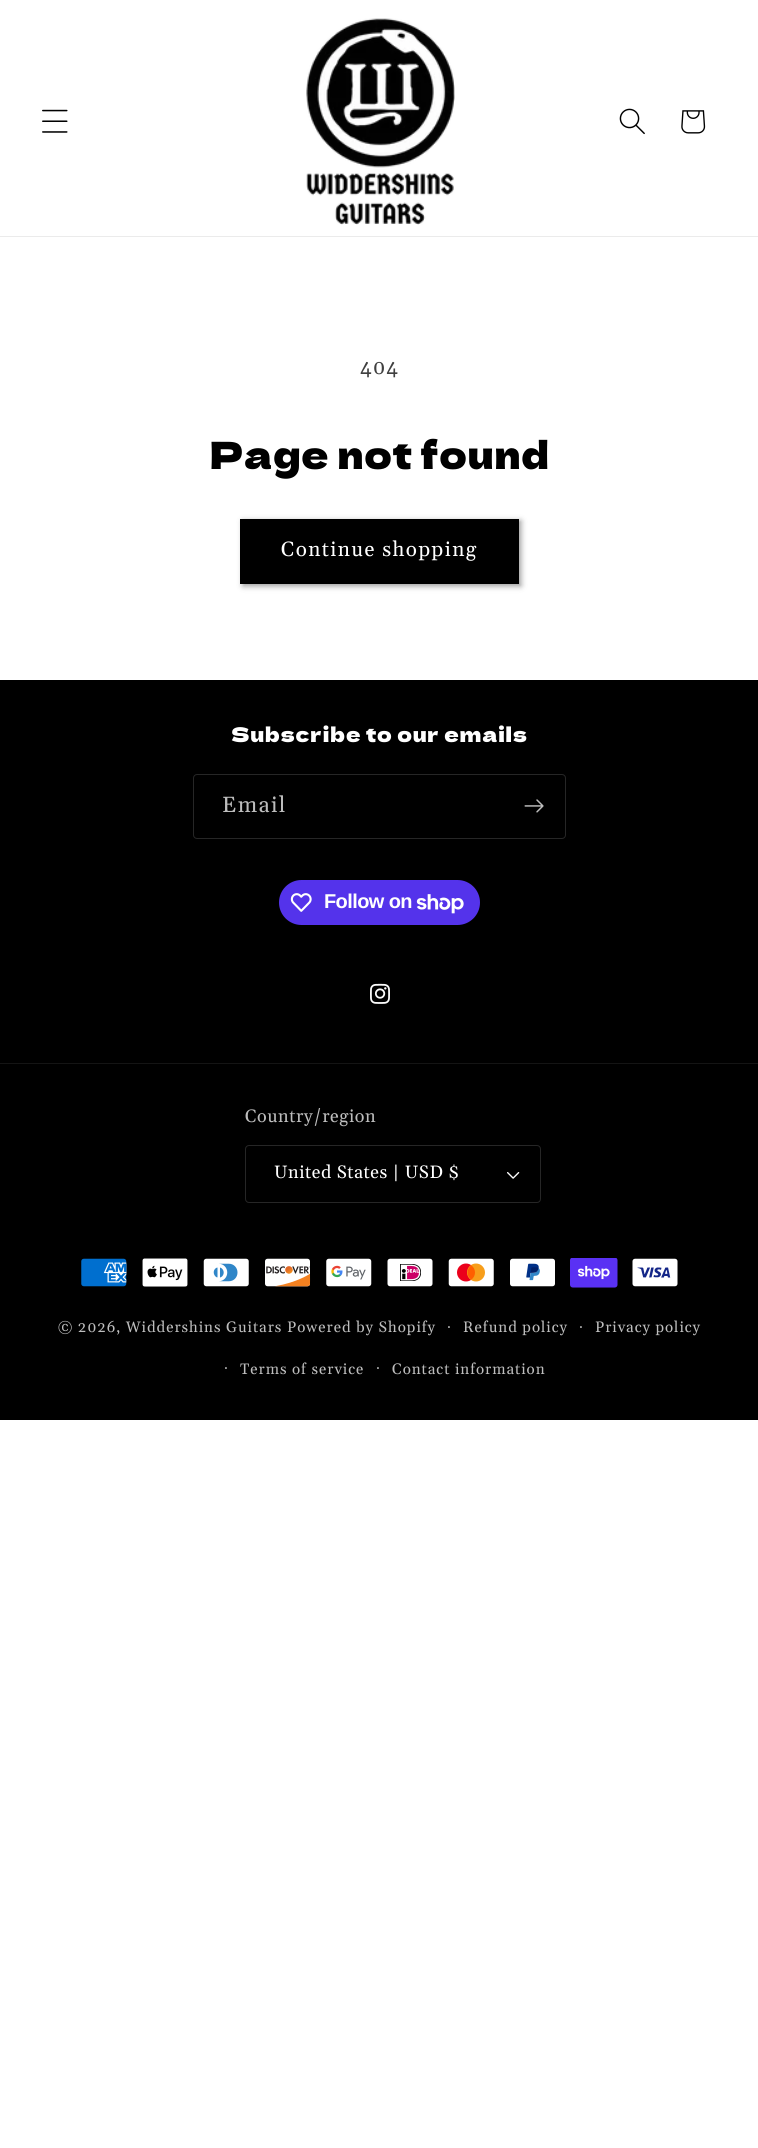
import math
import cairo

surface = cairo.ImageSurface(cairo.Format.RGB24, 758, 2148)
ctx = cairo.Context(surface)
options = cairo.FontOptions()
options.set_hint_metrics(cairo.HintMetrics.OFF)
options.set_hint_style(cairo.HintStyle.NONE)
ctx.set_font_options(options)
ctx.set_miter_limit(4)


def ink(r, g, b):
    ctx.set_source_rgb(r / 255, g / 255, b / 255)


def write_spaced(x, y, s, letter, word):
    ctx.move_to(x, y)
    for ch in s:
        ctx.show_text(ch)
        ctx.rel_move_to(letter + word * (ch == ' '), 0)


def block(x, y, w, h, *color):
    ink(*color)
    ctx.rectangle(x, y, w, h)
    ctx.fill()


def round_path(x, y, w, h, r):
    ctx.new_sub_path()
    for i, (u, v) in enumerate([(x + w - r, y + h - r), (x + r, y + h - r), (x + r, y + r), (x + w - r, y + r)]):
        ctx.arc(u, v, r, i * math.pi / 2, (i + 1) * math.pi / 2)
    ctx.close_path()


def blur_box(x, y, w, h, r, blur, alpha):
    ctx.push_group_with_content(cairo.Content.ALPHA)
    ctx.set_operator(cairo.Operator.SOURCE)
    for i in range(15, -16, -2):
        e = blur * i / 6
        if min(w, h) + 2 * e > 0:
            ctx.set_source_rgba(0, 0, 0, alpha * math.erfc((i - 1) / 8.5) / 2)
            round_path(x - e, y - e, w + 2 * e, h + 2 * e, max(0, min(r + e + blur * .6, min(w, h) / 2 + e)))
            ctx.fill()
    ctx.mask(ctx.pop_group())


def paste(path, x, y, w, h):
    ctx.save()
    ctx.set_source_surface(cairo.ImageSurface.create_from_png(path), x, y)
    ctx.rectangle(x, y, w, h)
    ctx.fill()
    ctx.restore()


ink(255, 255, 255)
ctx.paint()
block(0, 236, 758, 1, 235, 235, 235)
paste("pic1.png", 42, 109, 26, 24)
paste("pic2.png", 306, 18, 149, 207)
paste("pic3.png", 619, 108, 26, 27)
paste("pic4.png", 681, 110, 25, 24)
ctx.select_font_face("Gelasio")
ctx.set_font_size(20.6)
ink(64, 64, 64)
write_spaced(360, 374, "404", 1, 0)
ctx.select_font_face("Dela Gothic One")
ctx.set_font_size(37.5)
ink(0, 0, 0)
write_spaced(210, 469, "Page not found", 0.75, 0)
ink(0, 0, 0)
blur_box(243, 521, 278, 65, 0, 3, 0.4)
block(240, 519, 279, 65, 0, 0, 0)
ctx.select_font_face("Gelasio")
ctx.set_font_size(20.6)
ink(255, 255, 255)
write_spaced(281, 556, "Continue shopping", 1.4, 0)
block(0, 680, 758, 740, 0, 0, 0)
ctx.select_font_face("Dela Gothic One")
ctx.set_font_size(20)
ink(255, 255, 255)
write_spaced(231, 742, "Subscribe to our emails", 0.75, 0)
round_path(193.5, 774.5, 372, 64, 3.5)
ink(38, 38, 38)
ctx.set_line_width(1)
ctx.stroke()
ctx.select_font_face("Gelasio")
ctx.set_font_size(22)
ink(189, 189, 189)
write_spaced(222, 812, "Email", 1.4, 0)
paste("pic5.png", 524, 799, 20, 14)
ink(84, 51, 235)
round_path(279, 880, 201, 45, 22.5)
ctx.fill()
paste("pic6.png", 290, 893, 22, 19)
ctx.select_font_face("Liberation Sans", cairo.FontSlant.NORMAL, cairo.FontWeight.BOLD)
ctx.set_font_size(20)
ink(255, 255, 255)
write_spaced(324, 908, "Follow on", -0.6, 0)
paste("pic7.png", 416, 894, 48, 20)
paste("pic8.png", 370, 983, 20, 21)
block(0, 1063, 758, 1, 20, 20, 20)
ctx.select_font_face("Gelasio")
ctx.set_font_size(17.9)
ink(189, 189, 189)
write_spaced(245, 1122, "Country/region", 0.55, 0)
paste("pic9.png", 507, 1172, 13, 7)
round_path(245.5, 1145.5, 295, 57, 3.5)
ink(38, 38, 38)
ctx.stroke()
ink(255, 255, 255)
write_spaced(274, 1178, "United States | USD $", 0.55, 0)
paste("pic10.png", 81, 1258, 46, 29)
paste("pic11.png", 142, 1258, 46, 29)
paste("pic12.png", 203, 1258, 46, 29)
paste("pic13.png", 265, 1258, 46, 29)
paste("pic14.png", 326, 1258, 46, 29)
paste("pic15.png", 387, 1258, 46, 29)
paste("pic16.png", 448, 1258, 46, 29)
paste("pic17.png", 510, 1258, 45, 29)
paste("pic18.png", 570, 1258, 48, 30)
paste("pic19.png", 632, 1258, 46, 29)
ctx.set_font_size(15.1)
ink(189, 189, 189)
write_spaced(58, 1332, "© 2026, Widdershins Guitars", 0.95, 0)
ctx.set_font_size(14)
write_spaced(447, 1332, "·", 0.95, 0)
ctx.set_font_size(15.1)
write_spaced(463, 1332, "Refund policy", 0.95, 0)
ctx.set_font_size(14)
write_spaced(579, 1332, "·", 0.95, 0)
ctx.set_font_size(15.1)
write_spaced(595, 1332, "Privacy policy", 0.95, 0)
ctx.set_font_size(14)
write_spaced(224, 1373, "·", 0.95, 0)
ctx.set_font_size(15.1)
write_spaced(240, 1374, "Terms of service", 0.95, 0)
ctx.set_font_size(14)
write_spaced(376, 1373, "·", 0.95, 0)
ctx.set_font_size(15.1)
write_spaced(392, 1374, "Contact information", 0.95, 0)
write_spaced(287, 1332, "Powered by Shopify", 0.95, 0)
surface.write_to_png("screenshot.png")
